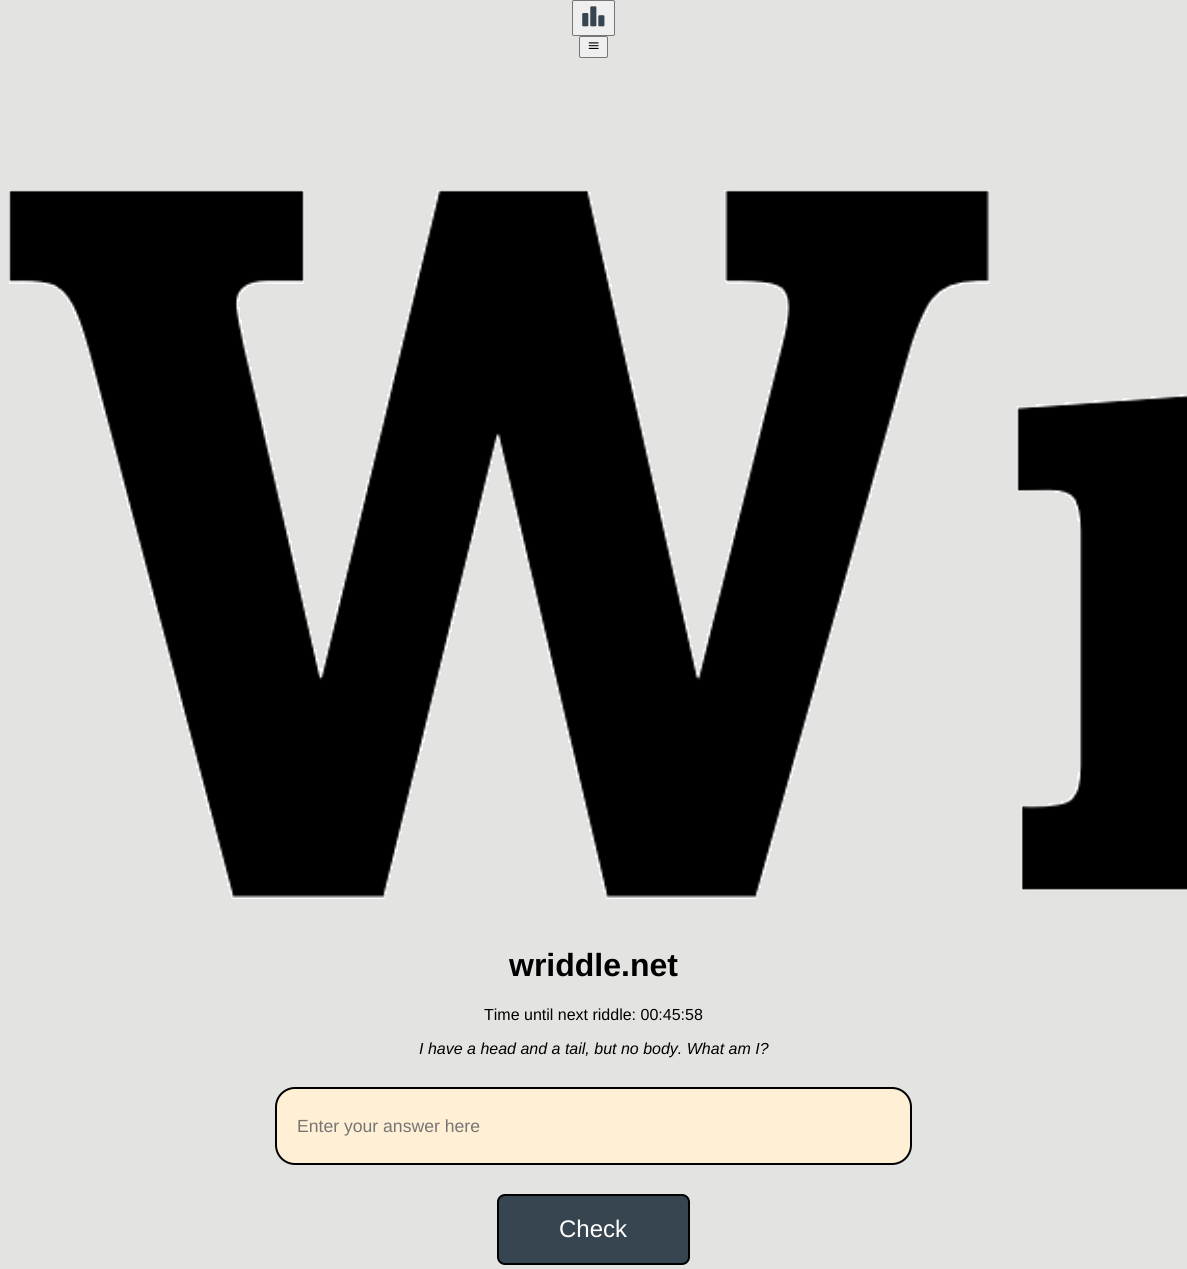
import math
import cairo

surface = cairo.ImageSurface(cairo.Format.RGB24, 1187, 1269)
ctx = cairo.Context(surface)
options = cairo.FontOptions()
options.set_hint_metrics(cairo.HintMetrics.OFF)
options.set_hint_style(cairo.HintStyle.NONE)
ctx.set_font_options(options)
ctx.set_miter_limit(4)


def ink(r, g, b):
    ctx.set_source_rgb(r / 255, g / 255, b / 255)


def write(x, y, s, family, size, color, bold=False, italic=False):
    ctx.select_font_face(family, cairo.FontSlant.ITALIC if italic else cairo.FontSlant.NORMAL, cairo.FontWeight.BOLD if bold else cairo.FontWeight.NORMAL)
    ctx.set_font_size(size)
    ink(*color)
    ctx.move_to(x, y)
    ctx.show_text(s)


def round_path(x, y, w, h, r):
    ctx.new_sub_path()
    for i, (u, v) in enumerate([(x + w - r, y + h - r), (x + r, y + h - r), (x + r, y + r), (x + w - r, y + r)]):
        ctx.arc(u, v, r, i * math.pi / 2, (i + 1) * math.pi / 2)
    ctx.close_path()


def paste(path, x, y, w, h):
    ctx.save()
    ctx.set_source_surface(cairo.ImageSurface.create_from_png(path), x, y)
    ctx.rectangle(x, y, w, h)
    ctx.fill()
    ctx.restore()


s1 = dict(family="Liberation Sans", size=32, color=(0, 0, 0), bold=True)
s2 = dict(family="Liberation Sans", size=16, color=(0, 0, 0))
s3 = dict(family="Liberation Sans", size=16, color=(0, 0, 0), italic=True)
s4 = dict(family="Liberation Sans", size=17.6, color=(117, 117, 117))
s5 = dict(family="Liberation Sans", size=24, color=(255, 255, 255))

ink(227, 227, 225)
ctx.paint()
ink(239, 239, 239)
round_path(572.5, 0.5, 42, 35, 1.5)
ctx.fill_preserve()
ink(118, 118, 118)
ctx.set_line_width(1)
ctx.stroke()
paste("pic1.png", 582, 6, 23, 21)
ink(239, 239, 239)
round_path(579.5, 36.5, 28, 21, 1.5)
ctx.fill_preserve()
ink(118, 118, 118)
ctx.stroke()
paste("pic2.png", 588, 42, 11, 7)
paste("pic3.png", 9, 190, 1178, 709)
write(509, 976, "wriddle.net", **s1)
write(484, 1020, "Time until next riddle: 00:45:58", **s2)
write(419, 1054, "I have a head and a tail, but no body. What am I?", **s3)
ink(255, 239, 213)
round_path(276, 1088, 635, 76, 19)
ctx.fill_preserve()
ink(0, 0, 0)
ctx.set_line_width(2)
ctx.stroke()
write(297, 1132, "Enter your answer here", **s4)
ink(54, 69, 79)
round_path(498, 1195, 191, 69, 7)
ctx.fill_preserve()
ink(0, 0, 0)
ctx.stroke()
write(559, 1237, "Check", **s5)
surface.write_to_png("screenshot.png")
